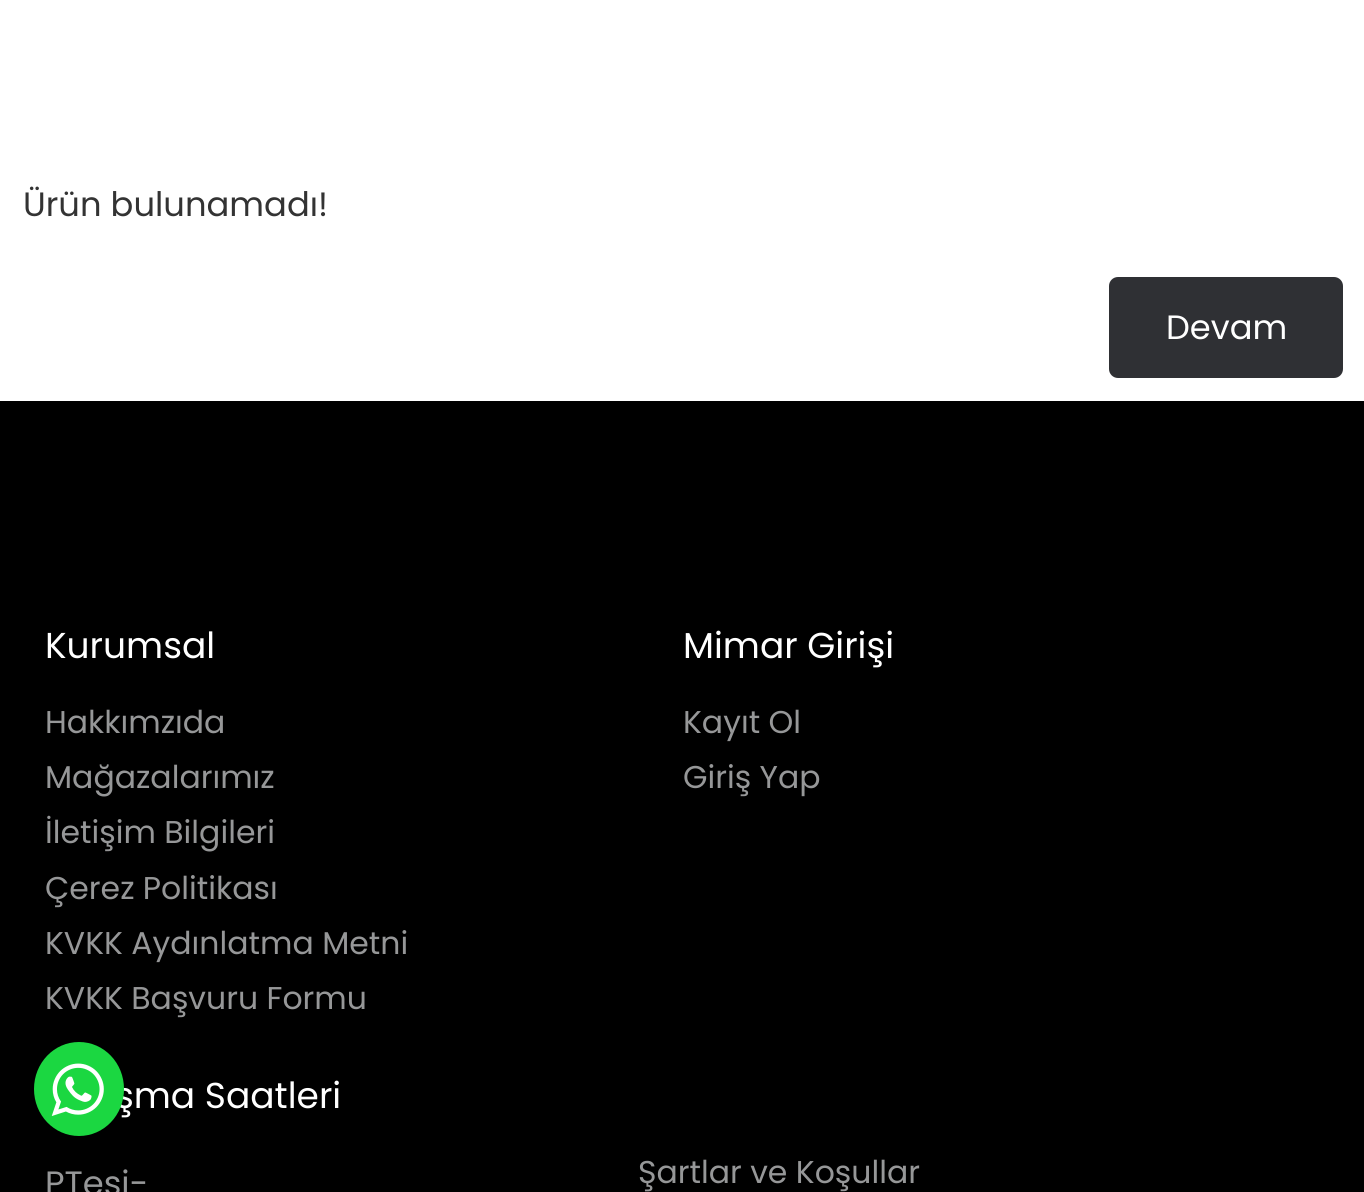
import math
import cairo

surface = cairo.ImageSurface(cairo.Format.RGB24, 1364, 1192)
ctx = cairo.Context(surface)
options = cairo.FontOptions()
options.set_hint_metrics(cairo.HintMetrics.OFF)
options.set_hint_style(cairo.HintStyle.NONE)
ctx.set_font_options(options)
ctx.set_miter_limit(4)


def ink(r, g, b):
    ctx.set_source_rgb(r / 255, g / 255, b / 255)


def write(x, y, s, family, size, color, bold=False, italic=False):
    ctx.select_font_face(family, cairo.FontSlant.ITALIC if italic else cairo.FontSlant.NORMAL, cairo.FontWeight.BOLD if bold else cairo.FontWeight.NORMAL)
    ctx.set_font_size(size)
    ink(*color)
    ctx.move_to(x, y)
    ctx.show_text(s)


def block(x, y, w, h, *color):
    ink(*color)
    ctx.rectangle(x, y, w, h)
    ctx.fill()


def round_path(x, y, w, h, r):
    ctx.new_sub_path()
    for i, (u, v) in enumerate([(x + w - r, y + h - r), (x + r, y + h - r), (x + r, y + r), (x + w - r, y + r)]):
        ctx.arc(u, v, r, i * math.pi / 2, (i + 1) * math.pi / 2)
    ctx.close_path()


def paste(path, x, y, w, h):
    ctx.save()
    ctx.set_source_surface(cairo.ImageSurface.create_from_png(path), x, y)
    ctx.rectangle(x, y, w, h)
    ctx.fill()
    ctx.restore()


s1 = dict(family="Poppins", size=33.75, color=(51, 51, 51))
s2 = dict(family="Poppins", size=33.75, color=(255, 255, 255))
s3 = dict(family="Poppins", size=36, color=(255, 255, 255))
s4 = dict(family="Poppins", size=31.5, color=(150, 151, 152))
s5 = dict(family="Poppins", size=33.75, color=(150, 151, 152))

ink(255, 255, 255)
ctx.paint()
write(23, 216, "Ürün bulunamadı!", **s1)
ink(47, 48, 52)
round_path(1109, 277, 234, 101, 9)
ctx.fill()
write(1166, 339, "Devam", **s2)
block(0, 401, 1364, 791, 0, 0, 0)
write(45, 658, "Kurumsal", **s3)
write(45, 733, "Hakkımzıda", **s4)
write(45, 788, "Mağazalarımız", **s4)
write(45, 843, "İletişim Bilgileri", **s4)
write(45, 899, "Çerez Politikası", **s4)
write(45, 954, "KVKK Aydınlatma Metni", **s4)
write(45, 1009, "KVKK Başvuru Formu", **s4)
write(683, 658, "Mimar Girişi", **s3)
write(683, 733, "Kayıt Ol", **s4)
write(683, 788, "Giriş Yap", **s4)
write(638, 1183, "Şartlar ve Koşullar", **s4)
write(115, 1108, "şma Saatleri", **s3)
write(45, 1195, "PTesi-", **s5)
ink(27, 215, 65)
ctx.new_path()
ctx.move_to(79, 1042)
ctx.curve_to(104, 1042, 124, 1063, 124, 1089)
ctx.curve_to(124, 1115, 104, 1136, 79, 1136)
ctx.curve_to(54, 1136, 34, 1115, 34, 1089)
ctx.curve_to(34, 1063, 54, 1042, 79, 1042)
ctx.close_path()
ctx.fill()
paste("pic1.png", 51, 1063, 53, 53)
surface.write_to_png("screenshot.png")
